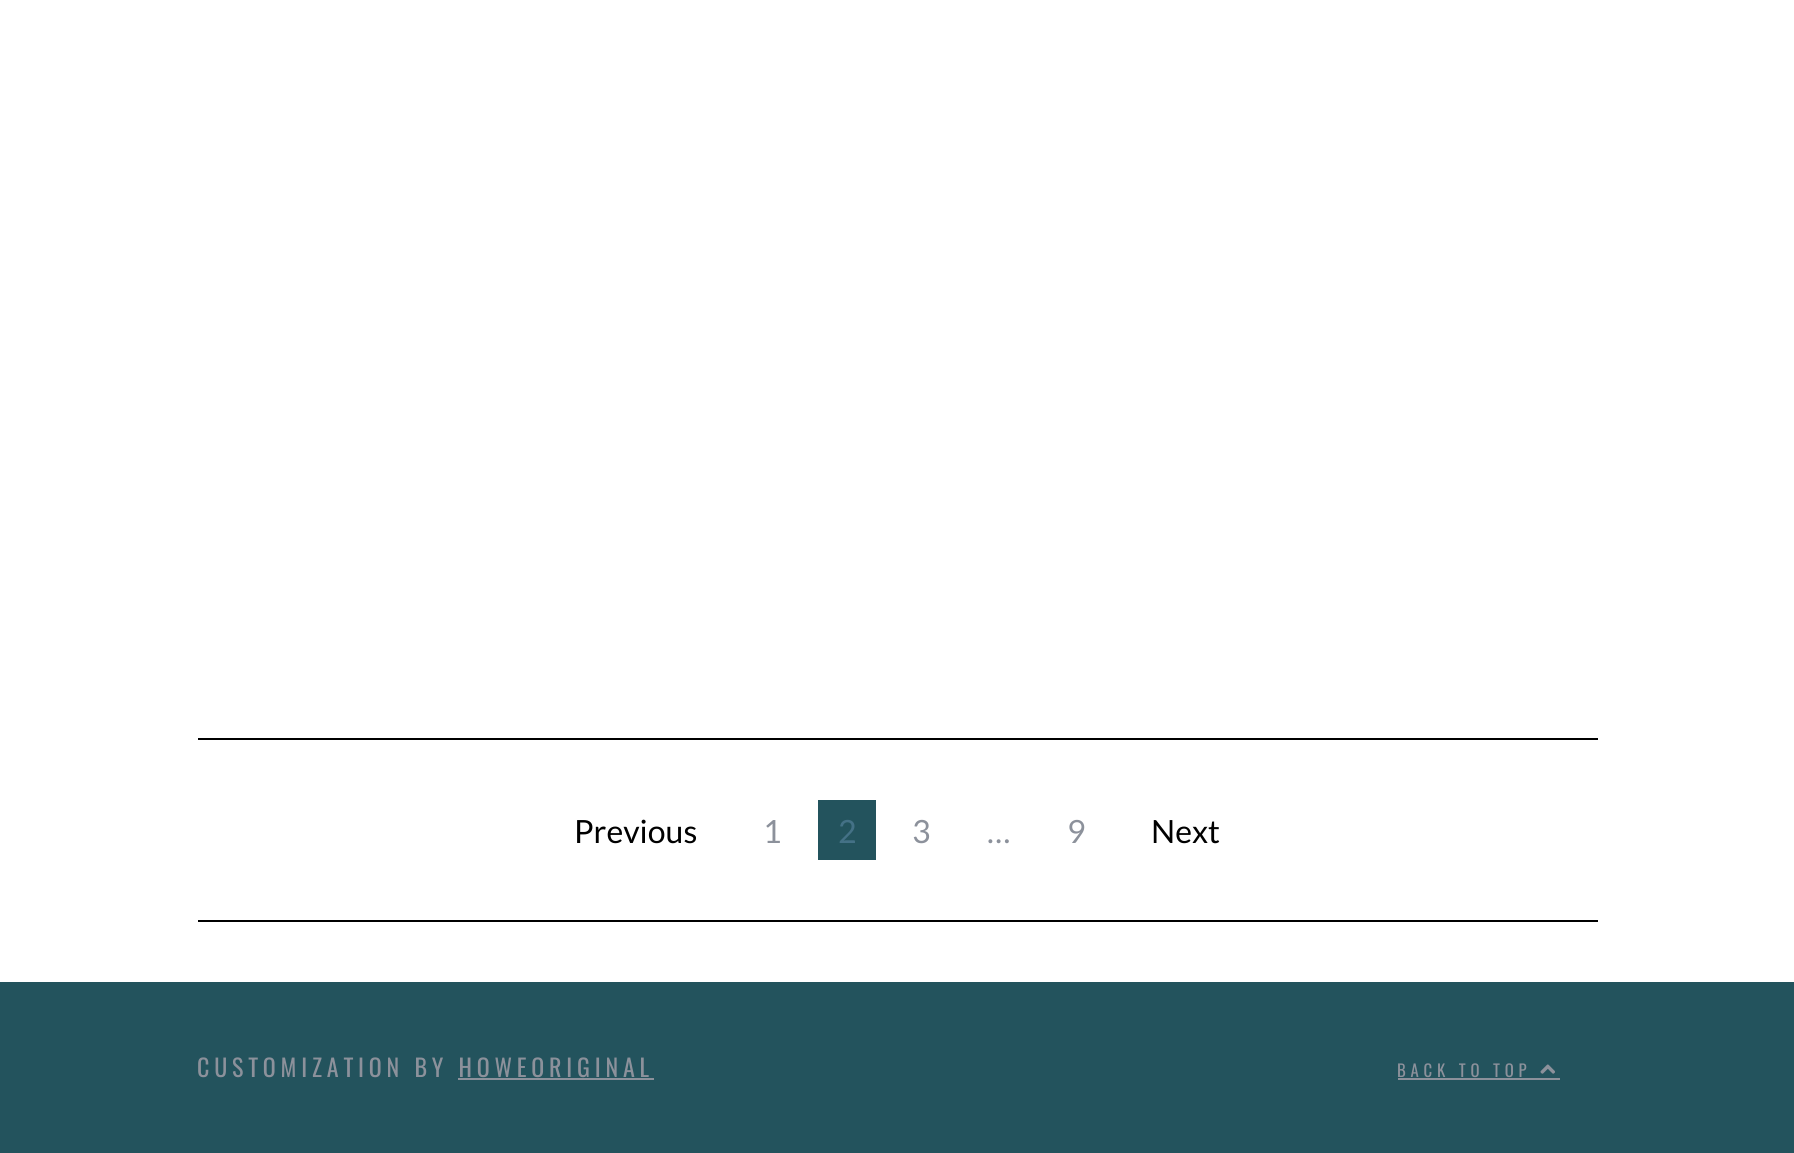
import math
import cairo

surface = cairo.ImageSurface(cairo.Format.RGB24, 1794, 1153)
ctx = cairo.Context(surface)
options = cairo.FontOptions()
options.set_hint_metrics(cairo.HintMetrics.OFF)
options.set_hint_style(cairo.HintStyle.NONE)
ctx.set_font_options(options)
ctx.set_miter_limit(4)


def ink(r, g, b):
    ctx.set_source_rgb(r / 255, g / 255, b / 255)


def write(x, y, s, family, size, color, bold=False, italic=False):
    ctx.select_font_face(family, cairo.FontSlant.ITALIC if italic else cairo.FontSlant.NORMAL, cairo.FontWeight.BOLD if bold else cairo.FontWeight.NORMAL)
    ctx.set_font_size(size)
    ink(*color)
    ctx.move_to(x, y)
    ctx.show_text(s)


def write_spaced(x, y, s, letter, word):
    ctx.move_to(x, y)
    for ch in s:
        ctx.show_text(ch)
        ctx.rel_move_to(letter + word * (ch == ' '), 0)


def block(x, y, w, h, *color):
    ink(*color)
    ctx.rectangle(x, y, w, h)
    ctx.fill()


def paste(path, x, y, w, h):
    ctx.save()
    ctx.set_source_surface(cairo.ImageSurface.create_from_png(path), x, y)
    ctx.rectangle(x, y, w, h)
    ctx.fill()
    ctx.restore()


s1 = dict(family="Lato", size=32, color=(0, 0, 0))
s2 = dict(family="Lato", size=32, color=(140, 145, 155))
s3 = dict(family="Lato", size=32, color=(68, 113, 134))

ink(255, 255, 255)
ctx.paint()
block(198, 738, 1400, 2, 0, 0, 0)
block(198, 920, 1400, 2, 0, 0, 0)
write(574, 843, "Previous", **s1)
write(763, 843, "1", **s2)
block(818, 800, 58, 60, 35, 83, 93)
write(838, 843, "2", **s3)
write(912, 843, "3", **s2)
write(987, 843, "…", **s2)
write(1067, 843, "9", **s2)
write(1151, 843, "Next", **s1)
block(0, 982, 1794, 171, 35, 83, 93)
ctx.select_font_face("Oswald")
ctx.set_font_size(24)
ink(140, 145, 155)
write_spaced(197, 1077, "CUSTOMIZATION BY HOWEORIGINAL", 4.8, 0)
block(458, 1078, 196, 2, 140, 145, 155)
ctx.set_font_size(16.75)
write_spaced(1397, 1077, "BACK TO TOP", 4.8, 0)
block(1398, 1078, 162, 2, 140, 145, 155)
paste("pic1.png", 1540, 1064, 15, 10)
surface.write_to_png("screenshot.png")
